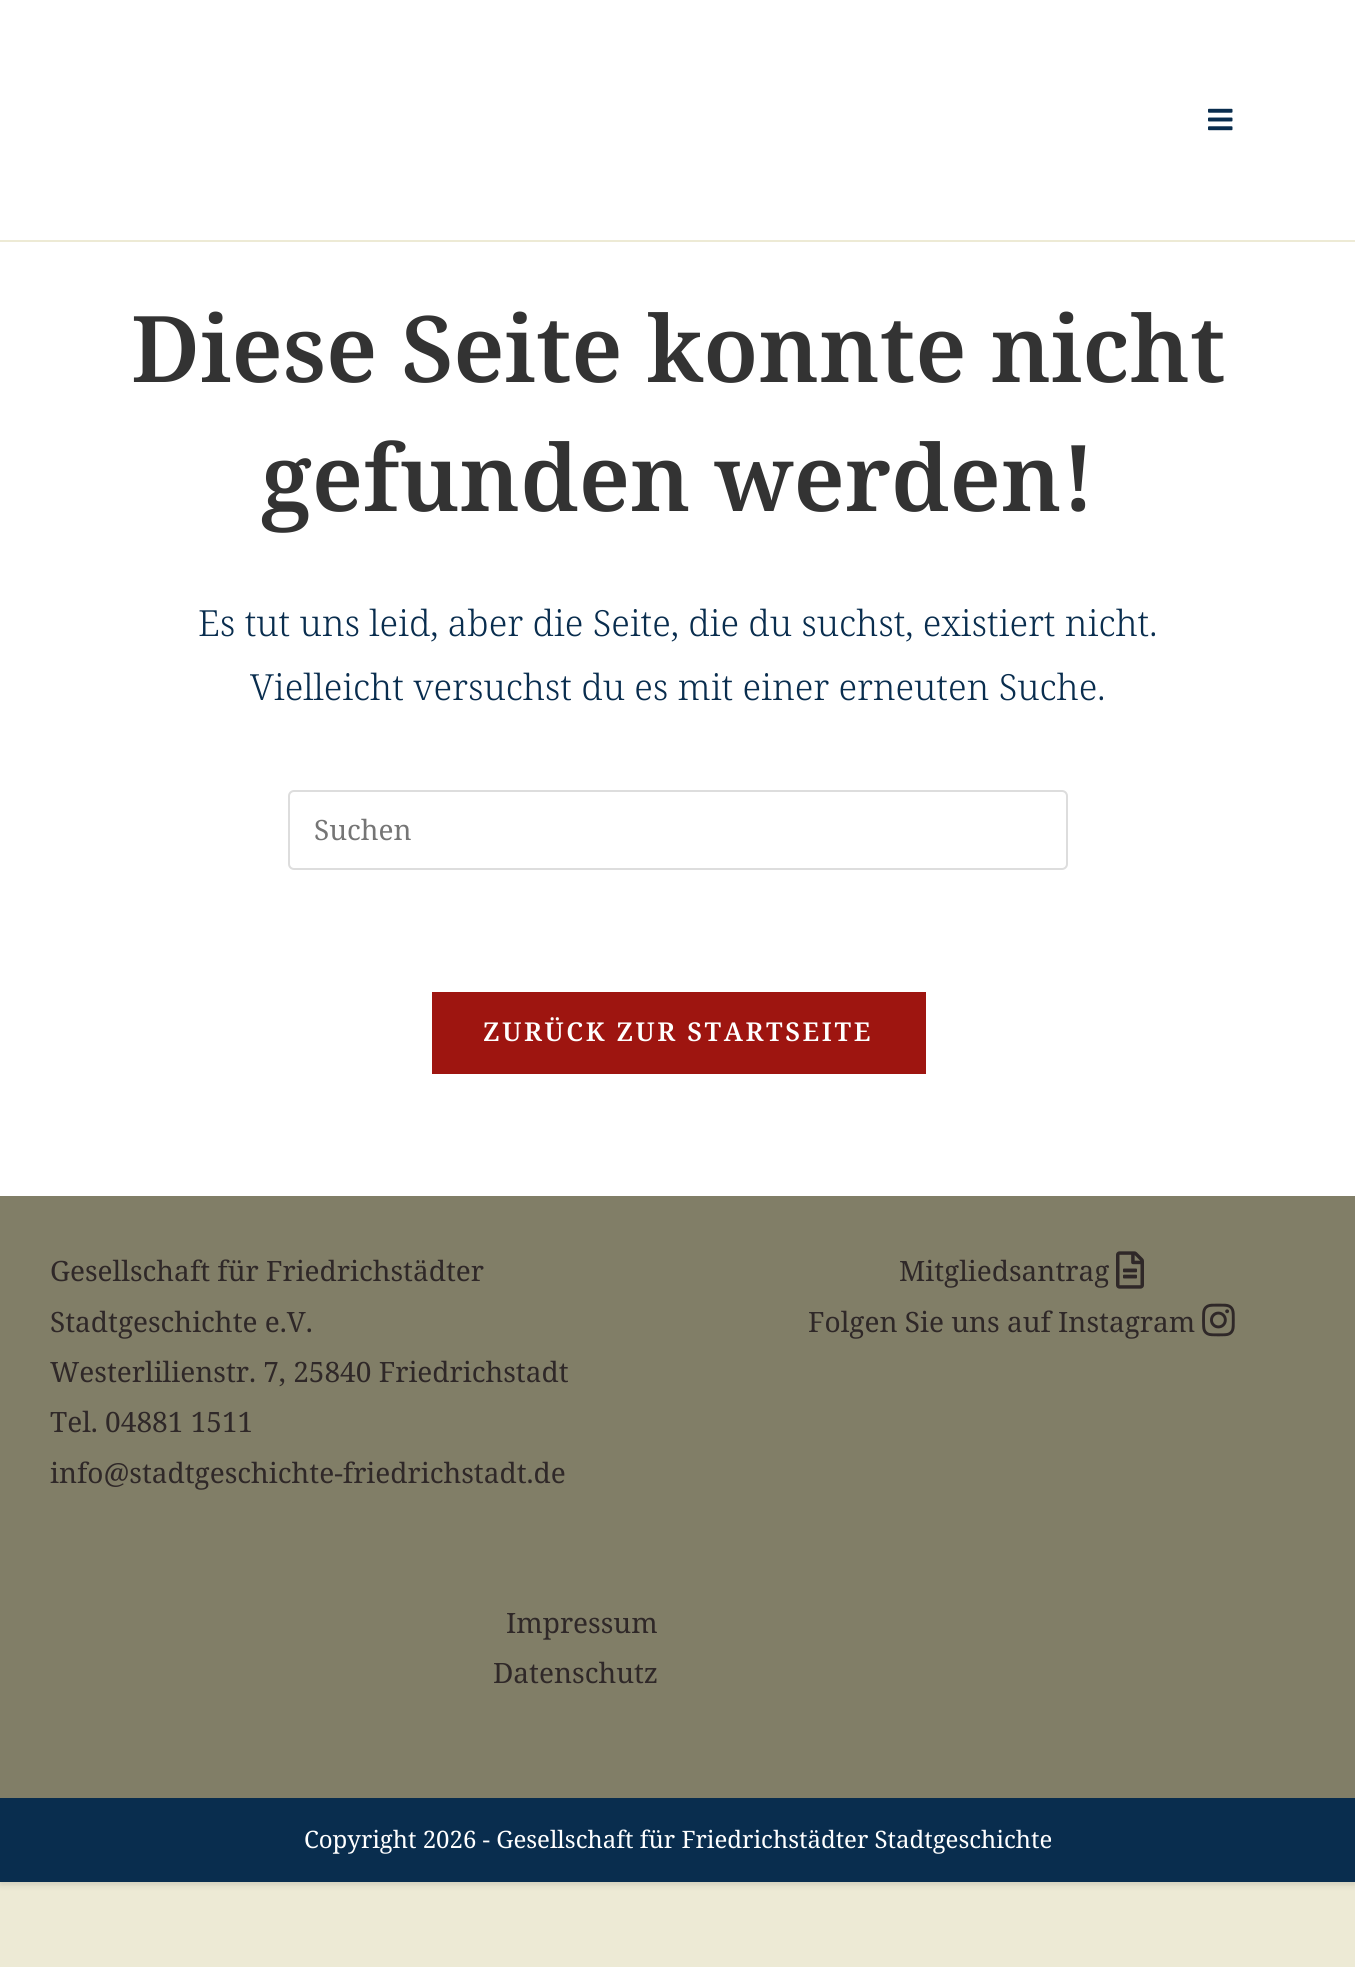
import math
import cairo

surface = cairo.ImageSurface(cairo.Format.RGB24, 1355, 1967)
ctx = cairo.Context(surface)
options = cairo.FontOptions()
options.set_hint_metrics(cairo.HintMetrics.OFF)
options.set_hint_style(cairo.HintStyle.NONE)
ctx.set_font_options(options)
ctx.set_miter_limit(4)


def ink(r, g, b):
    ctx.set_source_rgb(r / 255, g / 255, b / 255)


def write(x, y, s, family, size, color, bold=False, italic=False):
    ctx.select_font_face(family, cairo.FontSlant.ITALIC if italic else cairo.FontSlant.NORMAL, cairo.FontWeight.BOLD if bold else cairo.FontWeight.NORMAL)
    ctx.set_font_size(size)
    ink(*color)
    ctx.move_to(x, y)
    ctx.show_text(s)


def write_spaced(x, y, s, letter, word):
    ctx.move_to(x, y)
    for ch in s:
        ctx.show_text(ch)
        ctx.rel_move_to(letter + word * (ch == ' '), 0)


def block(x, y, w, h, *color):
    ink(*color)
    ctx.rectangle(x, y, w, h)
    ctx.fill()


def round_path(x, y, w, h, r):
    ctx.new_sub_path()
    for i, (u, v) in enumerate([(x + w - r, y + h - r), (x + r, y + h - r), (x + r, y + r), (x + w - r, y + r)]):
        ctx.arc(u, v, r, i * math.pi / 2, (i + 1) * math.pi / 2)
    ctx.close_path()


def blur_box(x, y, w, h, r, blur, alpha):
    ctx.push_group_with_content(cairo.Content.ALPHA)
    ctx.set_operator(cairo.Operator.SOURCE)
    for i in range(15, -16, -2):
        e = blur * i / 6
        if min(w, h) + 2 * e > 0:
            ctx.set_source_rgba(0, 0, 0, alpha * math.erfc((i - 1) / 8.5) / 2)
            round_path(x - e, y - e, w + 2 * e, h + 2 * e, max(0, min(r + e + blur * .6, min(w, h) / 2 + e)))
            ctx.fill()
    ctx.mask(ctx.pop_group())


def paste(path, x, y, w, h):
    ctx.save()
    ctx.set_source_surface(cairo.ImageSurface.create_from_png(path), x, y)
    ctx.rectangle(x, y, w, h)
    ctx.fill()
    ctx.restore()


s1 = dict(family="Noto Serif SemiBold", size=92, color=(51, 51, 51))
s2 = dict(family="Noto Serif Light", size=36, color=(9, 45, 78))
s3 = dict(family="Noto Serif", size=28, color=(117, 117, 117))
s4 = dict(family="Noto Serif", size=28, color=(47, 40, 40))
s5 = dict(family="Noto Serif", size=24, color=(255, 255, 255))

ink(237, 234, 213)
ctx.paint()
ink(0, 0, 0)
blur_box(0, 2, 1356, 1882, 0, 4, 0.15)
block(0, 0, 1355, 1196, 255, 255, 255)
block(0, 240, 1355, 2, 237, 234, 213)
paste("pic1.png", 1208, 108, 25, 23)
write(131, 382, "Diese Seite konnte nicht", **s1)
write(261, 511, "gefunden werden!", **s1)
write(198, 636, "Es tut uns leid, aber die Seite, die du suchst, existiert nicht.", **s2)
write(250, 700, "Vielleicht versuchst du es mit einer erneuten Suche.", **s2)
round_path(289, 791, 778, 78, 5)
ink(221, 221, 221)
ctx.stroke()
write(314, 840, "Suchen", **s3)
block(432, 992, 494, 82, 158, 21, 16)
ctx.select_font_face("Noto Serif SemiBold")
ctx.set_font_size(26)
ink(255, 255, 255)
write_spaced(483, 1041, "ZURÜCK ZUR STARTSEITE", 2.6, 0)
block(0, 1196, 1355, 602, 129, 126, 103)
write(50, 1281, "Gesellschaft für Friedrichstädter", **s4)
write(50, 1332, "Stadtgeschichte e.V.", **s4)
write(50, 1382, "Westerlilienstr. 7, 25840 Friedrichstadt", **s4)
write(50, 1432, "Tel. 04881 1511", **s4)
write(50, 1483, "info@stadtgeschichte-friedrichstadt.de", **s4)
write(899, 1281, "Mitgliedsantrag", **s4)
paste("pic2.png", 1116, 1251, 28, 38)
write(808, 1332, "Folgen Sie uns auf Instagram", **s4)
paste("pic3.png", 1202, 1303, 33, 34)
write(506, 1633, "Impressum", **s4)
write(493, 1683, "Datenschutz", **s4)
block(0, 1798, 1355, 84, 9, 45, 78)
write(304, 1848, "Copyright 2026 - Gesellschaft für Friedrichstädter Stadtgeschichte", **s5)
surface.write_to_png("screenshot.png")
